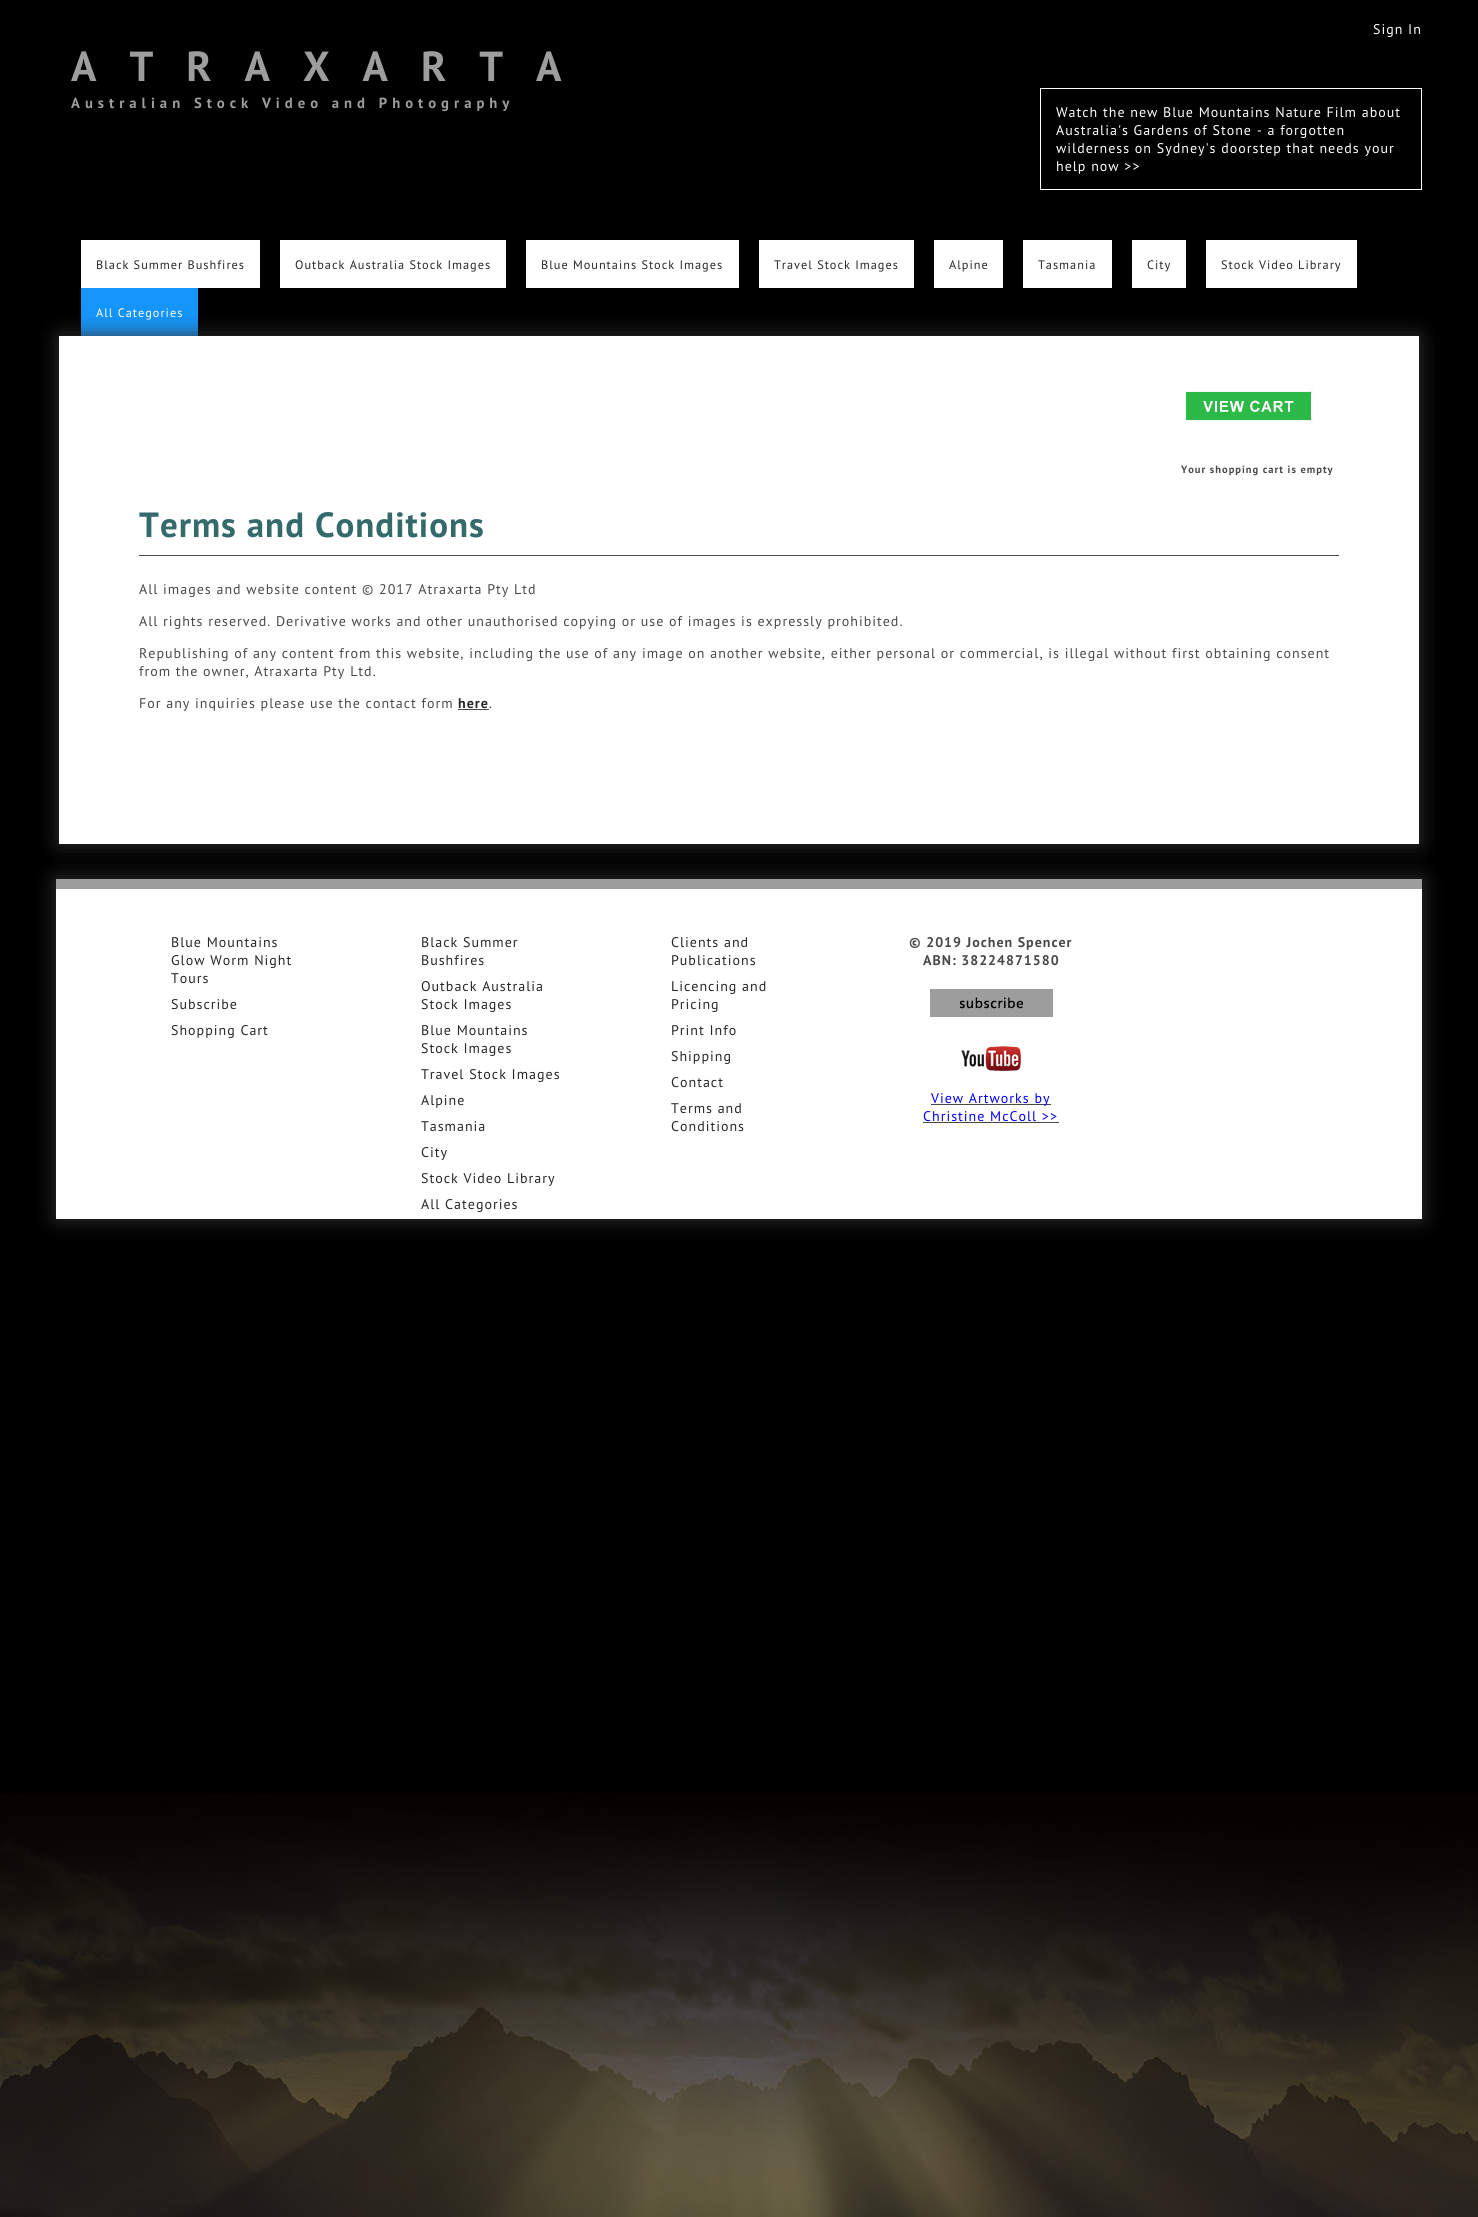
import math
import cairo

surface = cairo.ImageSurface(cairo.Format.RGB24, 1478, 2217)
ctx = cairo.Context(surface)
options = cairo.FontOptions()
options.set_hint_metrics(cairo.HintMetrics.OFF)
options.set_hint_style(cairo.HintStyle.NONE)
ctx.set_font_options(options)
ctx.set_miter_limit(4)


def ink(r, g, b):
    ctx.set_source_rgb(r / 255, g / 255, b / 255)


def write_spaced(x, y, s, letter, word):
    ctx.move_to(x, y)
    for ch in s:
        ctx.show_text(ch)
        ctx.rel_move_to(letter + word * (ch == ' '), 0)


def block(x, y, w, h, *color):
    ink(*color)
    ctx.rectangle(x, y, w, h)
    ctx.fill()


def round_path(x, y, w, h, r):
    ctx.new_sub_path()
    for i, (u, v) in enumerate([(x + w - r, y + h - r), (x + r, y + h - r), (x + r, y + r), (x + w - r, y + r)]):
        ctx.arc(u, v, r, i * math.pi / 2, (i + 1) * math.pi / 2)
    ctx.close_path()


def blur_box(x, y, w, h, r, blur, alpha):
    ctx.push_group_with_content(cairo.Content.ALPHA)
    ctx.set_operator(cairo.Operator.SOURCE)
    for i in range(15, -16, -2):
        e = blur * i / 6
        if min(w, h) + 2 * e > 0:
            ctx.set_source_rgba(0, 0, 0, alpha * math.erfc((i - 1) / 8.5) / 2)
            round_path(x - e, y - e, w + 2 * e, h + 2 * e, max(0, min(r + e + blur * .6, min(w, h) / 2 + e)))
            ctx.fill()
    ctx.mask(ctx.pop_group())


def paste(path, x, y, w, h):
    ctx.save()
    ctx.set_source_surface(cairo.ImageSurface.create_from_png(path), x, y)
    ctx.rectangle(x, y, w, h)
    ctx.fill()
    ctx.restore()


ink(0, 0, 0)
ctx.paint()
paste("pic1.png", 0, 1793, 1478, 424)
ctx.select_font_face("PT Sans")
ctx.set_font_size(14)
ink(255, 255, 255)
write_spaced(1373, 34, "Sign In", 1, 0)
ctx.select_font_face("PT Sans", cairo.FontSlant.NORMAL, cairo.FontWeight.BOLD)
ctx.set_font_size(42)
ink(157, 157, 157)
write_spaced(71, 81, "ATRAXARTA", 33, 0)
ctx.set_font_size(14.7)
write_spaced(71, 108, "Australian Stock Video and Photography", 5, 0)
ctx.rectangle(1040.5, 88.5, 381, 101)
ink(255, 255, 255)
ctx.set_line_width(1)
ctx.stroke()
ctx.select_font_face("PT Sans")
ctx.set_font_size(14)
write_spaced(1056, 117, "Watch the new Blue Mountains Nature Film about", 1, 0)
write_spaced(1056, 135, "Australia's Gardens of Stone - a forgotten", 1, 0)
write_spaced(1056, 153, "wilderness on Sydney's doorstep that needs your", 1, 0)
write_spaced(1056, 171, "help now >>", 1, 0)
block(81, 240, 179, 48, 255, 255, 255)
ctx.set_font_size(12.3)
ink(39, 39, 39)
write_spaced(96, 269, "Black Summer Bushfires", 1, 0)
block(280, 240, 226, 48, 255, 255, 255)
ink(39, 39, 39)
write_spaced(295, 269, "Outback Australia Stock Images", 1, 0)
block(526, 240, 213, 48, 255, 255, 255)
ink(39, 39, 39)
write_spaced(541, 269, "Blue Mountains Stock Images", 1, 0)
block(759, 240, 155, 48, 255, 255, 255)
ink(39, 39, 39)
write_spaced(774, 269, "Travel Stock Images", 1, 0)
block(934, 240, 69, 48, 255, 255, 255)
ink(39, 39, 39)
write_spaced(949, 269, "Alpine", 1, 0)
block(1023, 240, 89, 48, 255, 255, 255)
ink(39, 39, 39)
write_spaced(1038, 269, "Tasmania", 1, 0)
block(1132, 240, 54, 48, 255, 255, 255)
ink(39, 39, 39)
write_spaced(1147, 269, "City", 1, 0)
block(1206, 240, 151, 48, 255, 255, 255)
ink(39, 39, 39)
write_spaced(1221, 269, "Stock Video Library", 1, 0)
block(81, 288, 117, 48, 21, 149, 250)
ink(255, 255, 255)
write_spaced(96, 317, "All Categories", 1, 0)
ink(51, 51, 51)
blur_box(59, 336, 1360, 508, 0, 10, 1)
block(59, 336, 1360, 508, 255, 255, 255)
paste("pic2.png", 1185, 386, 129, 39)
ctx.select_font_face("PT Sans", cairo.FontSlant.NORMAL, cairo.FontWeight.BOLD)
ctx.set_font_size(10.5)
ink(73, 73, 73)
write_spaced(1181, 473, "Your shopping cart is empty", 1, 0)
block(139, 555, 1200, 1, 77, 77, 77)
ctx.set_font_size(35)
ink(52, 106, 106)
write_spaced(139, 537, "Terms and Conditions", 1, 0)
ctx.select_font_face("PT Sans")
ctx.set_font_size(14)
ink(73, 73, 73)
write_spaced(139, 594, "All images and website content © 2017 Atraxarta Pty Ltd", 1, 0)
write_spaced(139, 626, "All rights reserved. Derivative works and other unauthorised copying or use of images is expressly prohibited.", 1, 0)
write_spaced(139, 658, "Republishing of any content from this website, including the use of any image on another website, either personal or commercial, is illegal without first obtaining consent", 1, 0)
write_spaced(139, 676, "from the owner, Atraxarta Pty Ltd.", 1, 0)
write_spaced(139, 708, "For any inquiries please use the contact form", 1, 0)
ctx.select_font_face("PT Sans", cairo.FontSlant.NORMAL, cairo.FontWeight.BOLD)
ink(39, 39, 39)
write_spaced(458, 708, "here", 1, 0)
block(458, 709, 31, 1, 73, 73, 73)
ctx.select_font_face("PT Sans")
write_spaced(489, 708, ".", 1, 0)
ink(51, 51, 51)
blur_box(56, 879, 1366, 340, 0, 10, 1)
block(56, 889, 1366, 330, 255, 255, 255)
block(56, 879, 1366, 10, 157, 157, 157)
ink(39, 39, 39)
write_spaced(171, 947, "Blue Mountains", 1, 0)
write_spaced(171, 965, "Glow Worm Night", 1, 0)
write_spaced(171, 983, "Tours", 1, 0)
write_spaced(171, 1009, "Subscribe", 1, 0)
write_spaced(171, 1035, "Shopping Cart", 1, 0)
write_spaced(421, 947, "Black Summer", 1, 0)
write_spaced(421, 965, "Bushfires", 1, 0)
write_spaced(421, 991, "Outback Australia", 1, 0)
write_spaced(421, 1009, "Stock Images", 1, 0)
write_spaced(421, 1035, "Blue Mountains", 1, 0)
write_spaced(421, 1053, "Stock Images", 1, 0)
write_spaced(421, 1079, "Travel Stock Images", 1, 0)
write_spaced(421, 1105, "Alpine", 1, 0)
write_spaced(421, 1131, "Tasmania", 1, 0)
write_spaced(421, 1157, "City", 1, 0)
write_spaced(421, 1183, "Stock Video Library", 1, 0)
write_spaced(421, 1209, "All Categories", 1, 0)
write_spaced(671, 947, "Clients and", 1, 0)
write_spaced(671, 965, "Publications", 1, 0)
write_spaced(671, 991, "Licencing and", 1, 0)
write_spaced(671, 1009, "Pricing", 1, 0)
write_spaced(671, 1035, "Print Info", 1, 0)
write_spaced(671, 1061, "Shipping", 1, 0)
write_spaced(671, 1087, "Contact", 1, 0)
write_spaced(671, 1113, "Terms and", 1, 0)
write_spaced(671, 1131, "Conditions", 1, 0)
ctx.select_font_face("PT Sans", cairo.FontSlant.NORMAL, cairo.FontWeight.BOLD)
ink(73, 73, 73)
write_spaced(909, 947, "© 2019 Jochen Spencer", 1, 0)
write_spaced(923, 965, "ABN: 38224871580", 1, 0)
paste("pic3.png", 930, 989, 123, 28)
paste("pic4.png", 961, 1046, 60, 25)
block(931, 1104, 120, 1, 73, 73, 73)
ctx.select_font_face("PT Sans")
ink(0, 0, 255)
write_spaced(931, 1103, "View Artworks by", 1, 0)
write_spaced(923, 1121, "Christine McColl >>", 1, 0)
block(923, 1122, 136, 1, 73, 73, 73)
surface.write_to_png("screenshot.png")
